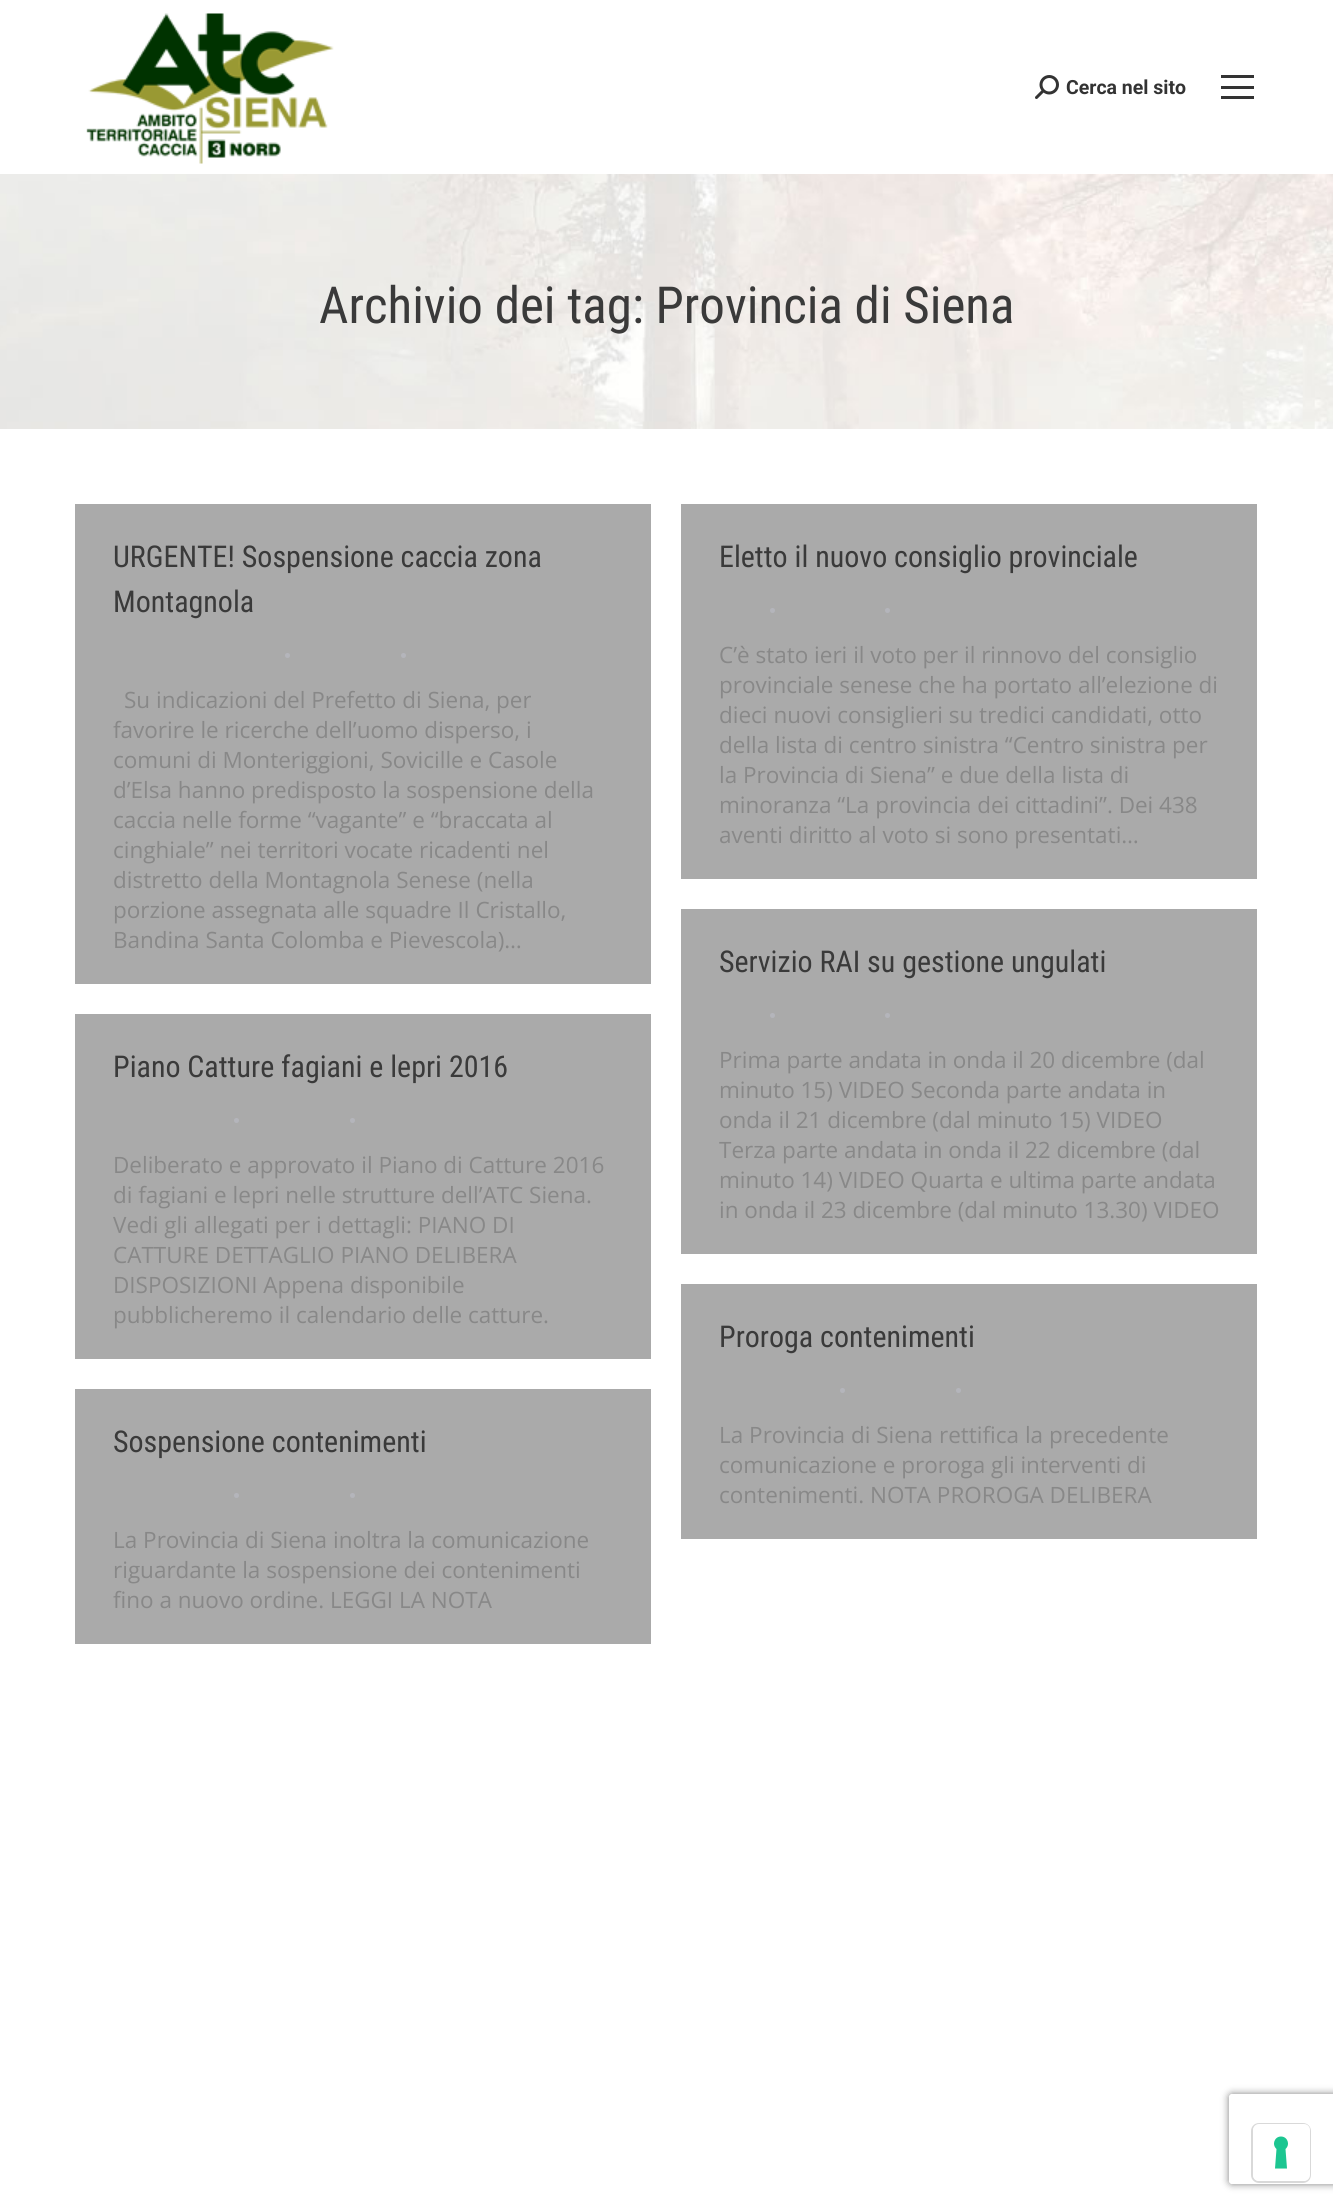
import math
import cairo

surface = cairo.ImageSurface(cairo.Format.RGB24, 1333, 2204)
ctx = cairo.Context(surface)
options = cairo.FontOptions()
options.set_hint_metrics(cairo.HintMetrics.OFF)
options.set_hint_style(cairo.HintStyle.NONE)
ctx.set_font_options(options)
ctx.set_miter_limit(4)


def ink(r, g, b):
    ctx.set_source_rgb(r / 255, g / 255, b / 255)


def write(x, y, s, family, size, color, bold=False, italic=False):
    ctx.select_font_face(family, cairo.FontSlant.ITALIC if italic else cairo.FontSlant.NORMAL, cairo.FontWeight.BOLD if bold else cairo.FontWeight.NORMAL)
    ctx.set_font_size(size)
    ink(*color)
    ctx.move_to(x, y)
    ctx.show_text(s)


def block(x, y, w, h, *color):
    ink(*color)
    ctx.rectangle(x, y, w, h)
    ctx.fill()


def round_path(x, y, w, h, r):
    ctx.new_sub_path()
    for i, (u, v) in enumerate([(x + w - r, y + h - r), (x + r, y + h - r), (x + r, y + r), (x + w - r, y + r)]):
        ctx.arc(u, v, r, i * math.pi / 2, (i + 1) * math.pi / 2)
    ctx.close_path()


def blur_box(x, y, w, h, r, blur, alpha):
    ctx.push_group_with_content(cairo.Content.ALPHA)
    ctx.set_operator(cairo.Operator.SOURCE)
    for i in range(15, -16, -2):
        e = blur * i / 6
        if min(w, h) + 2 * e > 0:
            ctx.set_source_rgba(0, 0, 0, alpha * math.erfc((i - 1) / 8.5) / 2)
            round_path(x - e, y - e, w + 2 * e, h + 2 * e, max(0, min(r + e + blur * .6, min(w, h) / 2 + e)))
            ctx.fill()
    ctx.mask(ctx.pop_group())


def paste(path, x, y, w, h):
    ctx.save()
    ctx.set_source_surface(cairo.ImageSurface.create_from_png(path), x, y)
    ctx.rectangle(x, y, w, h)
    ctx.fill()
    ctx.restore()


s1 = dict(family="Roboto", size=19.5, color=(51, 51, 51), bold=True)
s2 = dict(family="Roboto Condensed", size=51, color=(58, 58, 58))
s3 = dict(family="Roboto Condensed", size=30, color=(58, 58, 58))
s4 = dict(family="Open Sans", size=22.5, color=(136, 136, 136))

ink(255, 255, 255)
ctx.paint()
paste("pic1.png", 86, 13, 248, 151)
paste("pic2.png", 1035, 75, 24, 24)
write(1066, 94, "Cerca nel sito", **s1)
block(1221, 75, 33, 3, 51, 51, 51)
block(1221, 86, 33, 3, 51, 51, 51)
block(1221, 96, 33, 3, 51, 51, 51)
paste("pic3.png", 0, 174, 1333, 255)
write(319, 323, "Archivio dei tag: Provincia di Siena", **s2)
block(75, 504, 576, 480, 170, 170, 170)
write(113, 567, "URGENTE! Sospensione caccia zona", **s3)
write(113, 612, "Montagnola", **s3)
ink(180, 181, 187)
ctx.new_path()
ctx.arc(287.5, 655.5, 2.5, 0, 2 * math.pi)
ctx.fill()
ctx.arc(403.5, 655.5, 2.5, 0, 2 * math.pi)
ctx.fill()
write(124, 708, "Su indicazioni del Prefetto di Siena, per", **s4)
write(113, 738, "favorire le ricerche dell’uomo disperso, i", **s4)
write(113, 768, "comuni di Monteriggioni, Sovicille e Casole", **s4)
write(113, 798, "d’Elsa hanno predisposto la sospensione della", **s4)
write(113, 828, "caccia nelle forme “vagante” e “braccata al", **s4)
write(113, 858, "cinghiale” nei territori vocate ricadenti nel", **s4)
write(113, 888, "distretto della Montagnola Senese (nella", **s4)
write(113, 918, "porzione assegnata alle squadre Il Cristallo,", **s4)
write(113, 948, "Bandina Santa Colomba e Pievescola)…", **s4)
block(681, 504, 576, 375, 170, 170, 170)
write(719, 567, "Eletto il nuovo consiglio provinciale", **s3)
ink(180, 181, 187)
ctx.new_path()
ctx.arc(772.5, 610.5, 2.5, 0, 2 * math.pi)
ctx.fill()
ctx.arc(887.5, 610.5, 2.5, 0, 2 * math.pi)
ctx.fill()
write(719, 663, "C’è stato ieri il voto per il rinnovo del consiglio", **s4)
write(719, 693, "provinciale senese che ha portato all’elezione di", **s4)
write(719, 723, "dieci nuovi consiglieri su tredici candidati, otto", **s4)
write(719, 753, "della lista di centro sinistra “Centro sinistra per", **s4)
write(719, 783, "la Provincia di Siena” e due della lista di", **s4)
write(719, 813, "minoranza “La provincia dei cittadini”. Dei 438", **s4)
write(719, 843, "aventi diritto al voto si sono presentati…", **s4)
block(75, 1014, 576, 345, 170, 170, 170)
write(113, 1077, "Piano Catture fagiani e lepri 2016", **s3)
ink(180, 181, 187)
ctx.new_path()
ctx.arc(236.5, 1120.5, 2.5, 0, 2 * math.pi)
ctx.fill()
ctx.arc(352.5, 1120.5, 2.5, 0, 2 * math.pi)
ctx.fill()
write(113, 1173, "Deliberato e approvato il Piano di Catture 2016", **s4)
write(113, 1203, "di fagiani e lepri nelle strutture dell’ATC Siena.", **s4)
write(113, 1233, "Vedi gli allegati per i dettagli: PIANO DI", **s4)
write(113, 1263, "CATTURE DETTAGLIO PIANO DELIBERA", **s4)
write(113, 1293, "DISPOSIZIONI Appena disponibile", **s4)
write(113, 1323, "pubblicheremo il calendario delle catture.", **s4)
block(681, 909, 576, 345, 170, 170, 170)
write(719, 972, "Servizio RAI su gestione ungulati", **s3)
ink(180, 181, 187)
ctx.new_path()
ctx.arc(772.5, 1015.5, 2.5, 0, 2 * math.pi)
ctx.fill()
ctx.arc(887.5, 1015.5, 2.5, 0, 2 * math.pi)
ctx.fill()
write(719, 1068, "Prima parte andata in onda il 20 dicembre (dal", **s4)
write(719, 1098, "minuto 15) VIDEO Seconda parte andata in", **s4)
write(719, 1128, "onda il 21 dicembre (dal minuto 15) VIDEO", **s4)
write(719, 1158, "Terza parte andata in onda il 22 dicembre (dal", **s4)
write(719, 1188, "minuto 14) VIDEO Quarta e ultima parte andata", **s4)
write(719, 1218, "in onda il 23 dicembre (dal minuto 13.30) VIDEO", **s4)
block(75, 1389, 576, 255, 170, 170, 170)
write(113, 1452, "Sospensione contenimenti", **s3)
ink(180, 181, 187)
ctx.new_path()
ctx.arc(236.5, 1495.5, 2.5, 0, 2 * math.pi)
ctx.fill()
ctx.arc(352.5, 1495.5, 2.5, 0, 2 * math.pi)
ctx.fill()
write(113, 1548, "La Provincia di Siena inoltra la comunicazione", **s4)
write(113, 1578, "riguardante la sospensione dei contenimenti", **s4)
write(113, 1608, "fino a nuovo ordine. LEGGI LA NOTA", **s4)
block(681, 1284, 576, 255, 170, 170, 170)
write(719, 1347, "Proroga contenimenti", **s3)
ink(180, 181, 187)
ctx.new_path()
ctx.arc(842.5, 1390.5, 2.5, 0, 2 * math.pi)
ctx.fill()
ctx.arc(958.5, 1390.5, 2.5, 0, 2 * math.pi)
ctx.fill()
write(719, 1443, "La Provincia di Siena rettifica la precedente", **s4)
write(719, 1473, "comunicazione e proroga gli interventi di", **s4)
write(719, 1503, "contenimenti. NOTA PROROGA DELIBERA", **s4)
ctx.save()
ctx.set_fill_rule(cairo.FillRule.EVEN_ODD)
ctx.new_path()
ctx.move_to(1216, 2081)
ctx.line_to(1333, 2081)
ctx.line_to(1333, 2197)
ctx.line_to(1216, 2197)
ctx.close_path()
ctx.move_to(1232, 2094)
ctx.line_to(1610, 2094)
ctx.curve_to(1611.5, 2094, 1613, 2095.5, 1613, 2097)
ctx.line_to(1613, 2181)
ctx.curve_to(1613, 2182.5, 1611.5, 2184, 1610, 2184)
ctx.line_to(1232, 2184)
ctx.curve_to(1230.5, 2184, 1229, 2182.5, 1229, 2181)
ctx.line_to(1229, 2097)
ctx.curve_to(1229, 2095.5, 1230.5, 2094, 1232, 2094)
ctx.close_path()
ctx.clip()
ink(128, 128, 128)
blur_box(1229, 2094, 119, 90, 3, 4, 1)
ctx.restore()
round_path(1252, 2124, 58, 58, 7)
ink(217, 217, 217)
ctx.stroke()
ink(255, 255, 255)
round_path(1253, 2124, 57, 57, 6)
ctx.fill()
ink(28, 198, 145)
ctx.set_fill_rule(cairo.FillRule.EVEN_ODD)
ctx.new_path()
ctx.move_to(1281, 2136.5)
ctx.curve_to(1287.5, 2136.5, 1290.5, 2144.5, 1285.5, 2149)
ctx.line_to(1287, 2168.5)
ctx.line_to(1275, 2168.5)
ctx.line_to(1276.5, 2149)
ctx.curve_to(1271.5, 2144.5, 1274.5, 2136.5, 1281, 2136.5)
ctx.close_path()
ctx.fill()
surface.write_to_png("screenshot.png")
